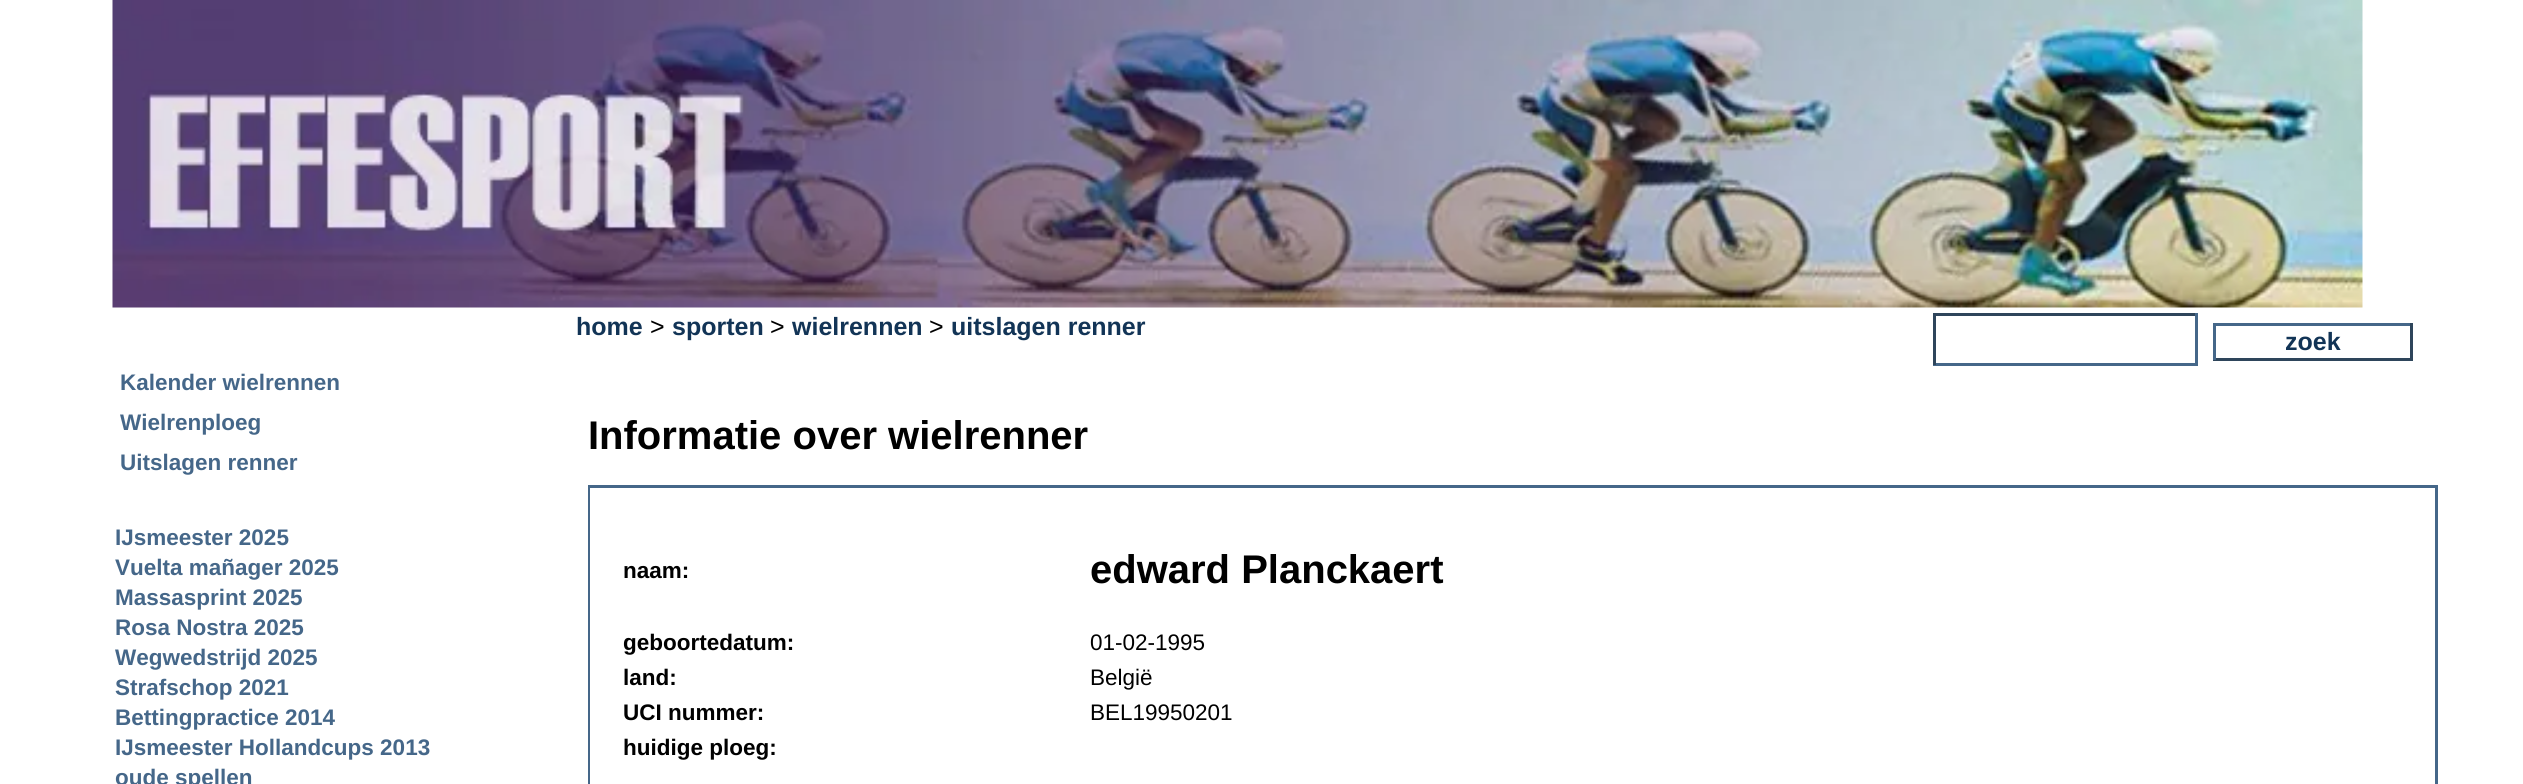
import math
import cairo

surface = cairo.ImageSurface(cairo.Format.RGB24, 2523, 784)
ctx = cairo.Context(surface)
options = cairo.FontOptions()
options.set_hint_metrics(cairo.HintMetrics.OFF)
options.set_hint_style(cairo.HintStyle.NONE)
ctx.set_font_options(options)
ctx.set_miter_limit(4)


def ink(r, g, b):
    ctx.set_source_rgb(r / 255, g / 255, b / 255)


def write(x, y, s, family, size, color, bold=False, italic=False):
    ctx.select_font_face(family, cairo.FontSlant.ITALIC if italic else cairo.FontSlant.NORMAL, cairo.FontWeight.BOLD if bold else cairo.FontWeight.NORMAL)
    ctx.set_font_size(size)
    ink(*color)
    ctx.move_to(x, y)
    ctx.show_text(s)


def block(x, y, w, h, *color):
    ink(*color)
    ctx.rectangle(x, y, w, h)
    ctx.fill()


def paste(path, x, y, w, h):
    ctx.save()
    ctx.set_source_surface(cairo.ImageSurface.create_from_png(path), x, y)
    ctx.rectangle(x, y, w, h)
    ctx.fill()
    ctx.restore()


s1 = dict(family="Liberation Sans", size=22.5, color=(69, 103, 137), bold=True)
s2 = dict(family="Liberation Sans", size=25, color=(18, 52, 86), bold=True)
s3 = dict(family="Liberation Sans", size=25, color=(0, 0, 0))
s4 = dict(family="Liberation Sans", size=40, color=(0, 0, 0), bold=True)
s5 = dict(family="Liberation Sans", size=22.5, color=(0, 0, 0), bold=True)
s6 = dict(family="Liberation Sans", size=22.5, color=(0, 0, 0))

ink(255, 255, 255)
ctx.paint()
paste("pic1.png", 112, 0, 2251, 308)
write(120, 390, "Kalender wielrennen", **s1)
write(120, 430, "Wielrenploeg", **s1)
write(120, 470, "Uitslagen renner", **s1)
write(115, 545, "IJsmeester 2025", **s1)
write(115, 575, "Vuelta mañager 2025", **s1)
write(115, 605, "Massasprint 2025", **s1)
write(115, 635, "Rosa Nostra 2025", **s1)
write(115, 665, "Wegwedstrijd 2025", **s1)
write(115, 695, "Strafschop 2021", **s1)
write(115, 725, "Bettingpractice 2014", **s1)
write(115, 755, "IJsmeester Hollandcups 2013", **s1)
write(115, 785, "oude spellen", **s1)
write(576, 335, "home", **s2)
write(650, 335, ">", **s3)
write(672, 335, "sporten", **s2)
write(770, 335, ">", **s3)
write(792, 335, "wielrennen", **s2)
write(929, 335, ">", **s3)
write(951, 335, "uitslagen renner", **s2)
block(1933, 313, 265, 3, 46, 69, 91)
block(2195, 313, 3, 52, 69, 103, 137)
block(1933, 363, 265, 3, 69, 103, 137)
block(1933, 313, 3, 52, 46, 69, 91)
block(2213, 323, 200, 3, 69, 103, 137)
block(2410, 323, 3, 37, 46, 69, 91)
block(2213, 358, 200, 3, 46, 69, 91)
block(2213, 323, 3, 37, 69, 103, 137)
write(2285, 350, "zoek", **s2)
write(588, 449, "Informatie over wielrenner", **s4)
ctx.rectangle(589.5, 486.5, 1847, 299)
ink(69, 103, 137)
ctx.set_line_width(3)
ctx.stroke()
block(590, 488, 1, 296, 255, 255, 255)
write(623, 578, "naam:", **s5)
write(1090, 583, "edward Planckaert", **s4)
write(623, 650, "geboortedatum:", **s5)
write(1090, 650, "01-02-1995", **s6)
write(623, 685, "land:", **s5)
write(1090, 685, "België", **s6)
write(623, 720, "UCI nummer:", **s5)
write(1090, 720, "BEL19950201", **s6)
write(623, 755, "huidige ploeg:", **s5)
surface.write_to_png("screenshot.png")
